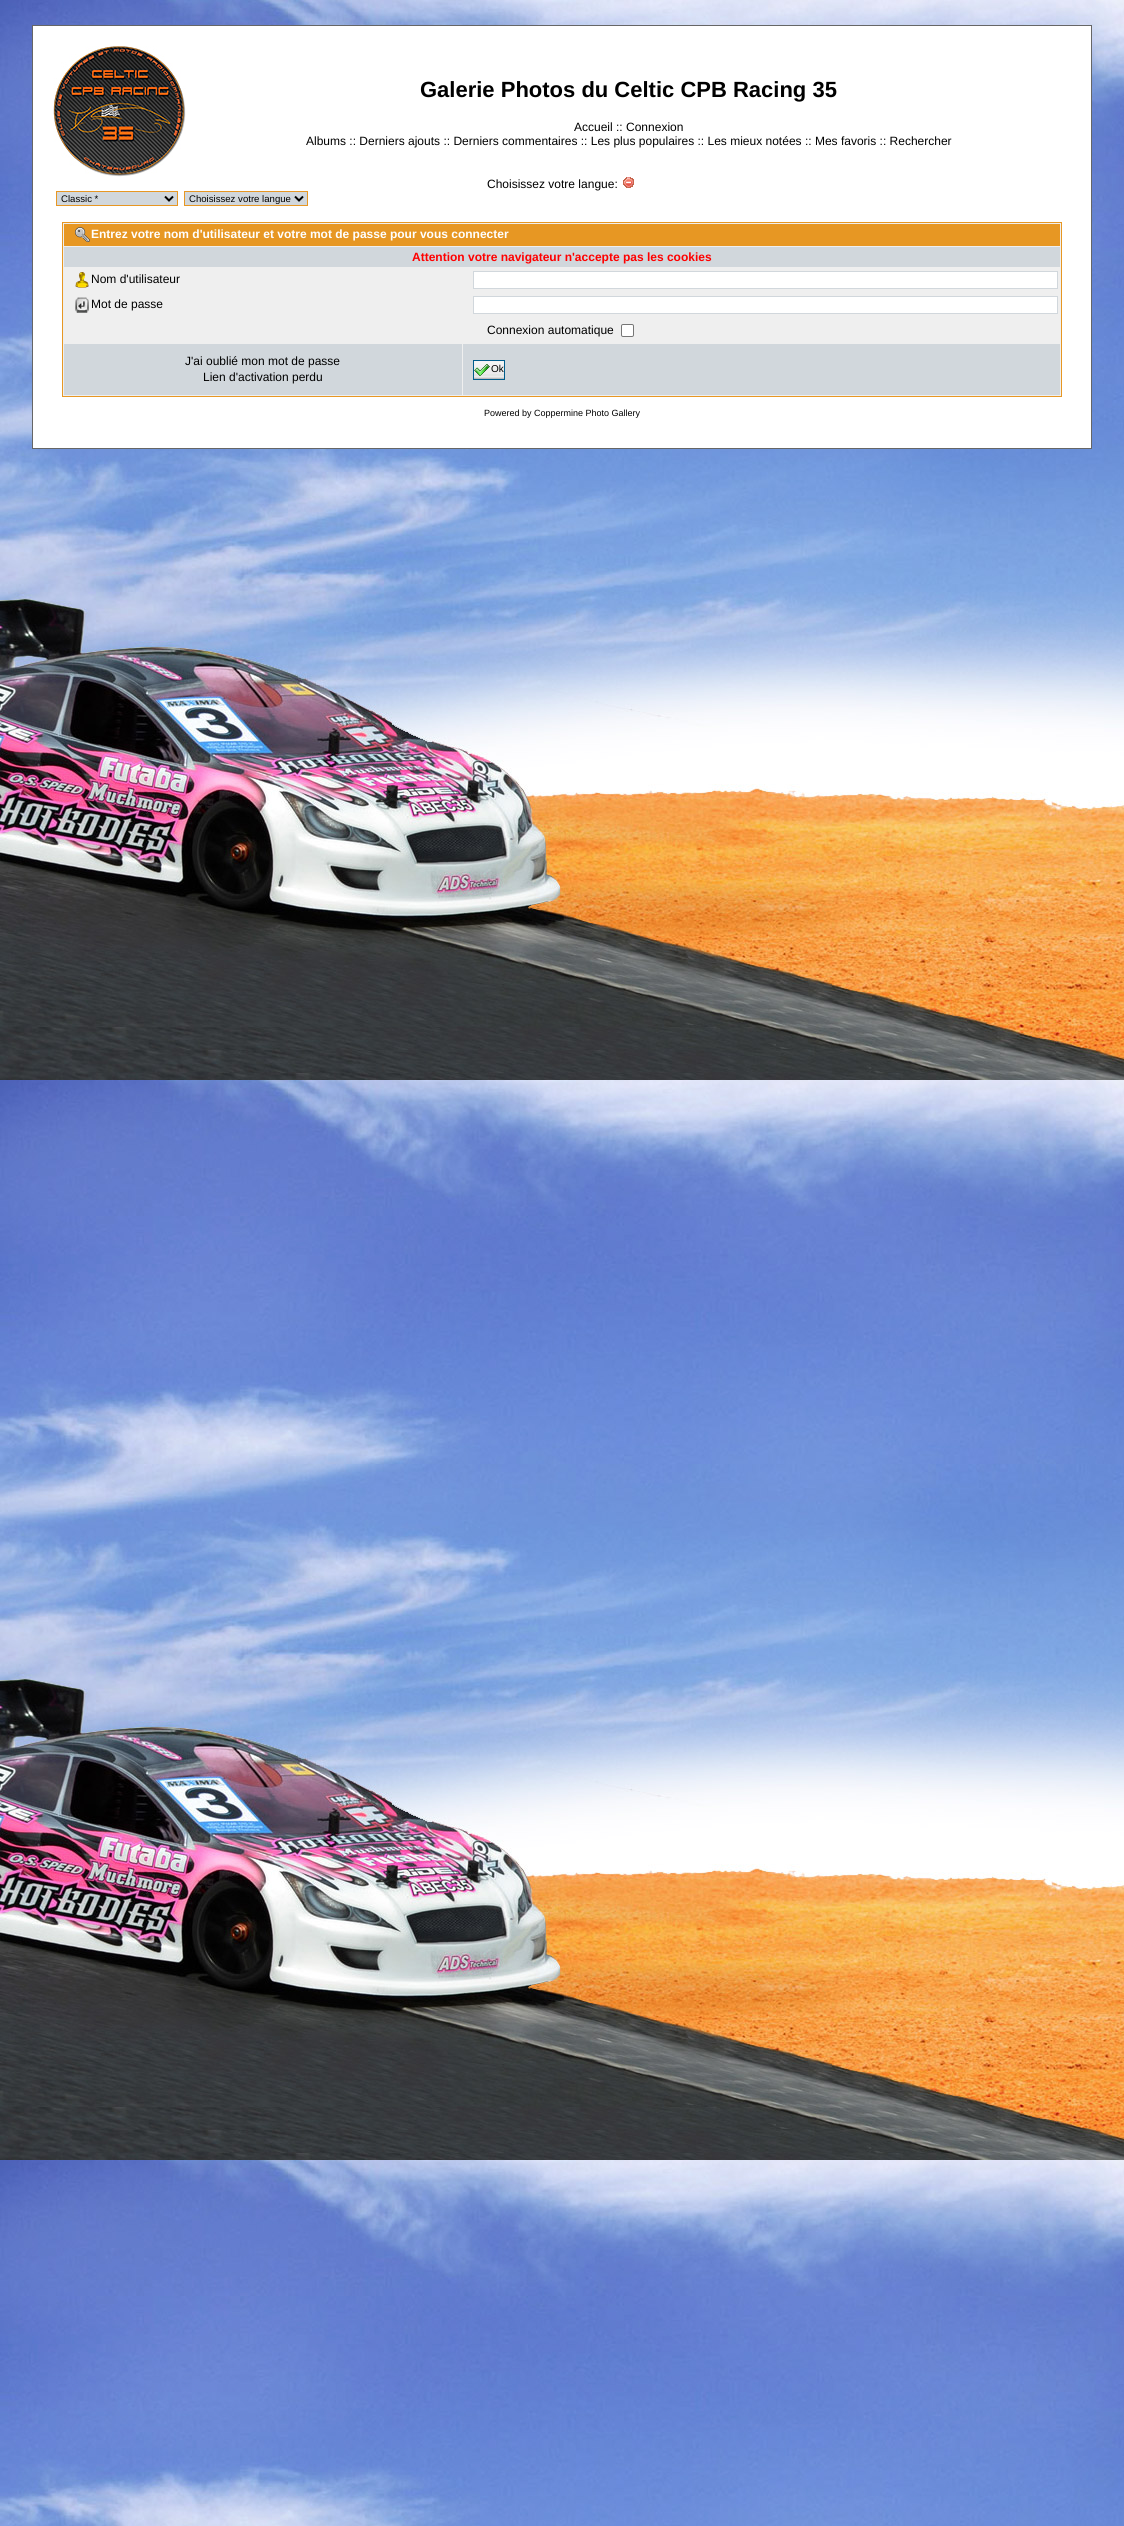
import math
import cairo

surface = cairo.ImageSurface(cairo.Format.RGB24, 1124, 2526)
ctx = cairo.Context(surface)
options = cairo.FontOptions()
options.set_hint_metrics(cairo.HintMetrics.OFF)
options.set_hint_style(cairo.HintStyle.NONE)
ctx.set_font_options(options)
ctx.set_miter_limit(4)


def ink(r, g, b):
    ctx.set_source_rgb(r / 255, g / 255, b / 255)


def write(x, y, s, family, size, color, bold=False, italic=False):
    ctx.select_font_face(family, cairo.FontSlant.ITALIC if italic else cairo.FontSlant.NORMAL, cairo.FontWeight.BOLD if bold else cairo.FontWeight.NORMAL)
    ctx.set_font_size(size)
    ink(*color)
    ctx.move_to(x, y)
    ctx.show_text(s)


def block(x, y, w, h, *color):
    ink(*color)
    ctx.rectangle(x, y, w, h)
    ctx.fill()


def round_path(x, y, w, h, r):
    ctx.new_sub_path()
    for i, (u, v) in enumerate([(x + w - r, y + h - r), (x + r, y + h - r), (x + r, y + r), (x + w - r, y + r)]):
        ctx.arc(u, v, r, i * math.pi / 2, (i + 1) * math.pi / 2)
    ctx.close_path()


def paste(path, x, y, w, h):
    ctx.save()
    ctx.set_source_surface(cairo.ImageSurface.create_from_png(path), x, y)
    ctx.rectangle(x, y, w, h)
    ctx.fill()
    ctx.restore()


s1 = dict(family="Liberation Sans", size=22, color=(0, 0, 0), bold=True)
s2 = dict(family="Liberation Sans", size=12, color=(0, 0, 0))
s3 = dict(family="Liberation Sans", size=9.6, color=(0, 0, 0))
s4 = dict(family="Liberation Sans", size=12, color=(255, 255, 255), bold=True)
s5 = dict(family="Liberation Sans", size=12, color=(255, 0, 0), bold=True)
s6 = dict(family="Liberation Sans", size=10, color=(0, 0, 0))
s7 = dict(family="Liberation Sans", size=9, color=(0, 0, 0))

ink(255, 255, 255)
ctx.paint()
paste("pic1.png", 0, 0, 1124, 2526)
ink(255, 255, 255)
ctx.rectangle(32.5, 25.5, 1059, 423)
ctx.fill_preserve()
ink(102, 102, 102)
ctx.set_line_width(1)
ctx.stroke()
paste("pic2.png", 53, 46, 133, 131)
write(420, 97, "Galerie Photos du Celtic CPB Racing 35", **s1)
write(574, 131, "Accueil :: Connexion", **s2)
write(306, 145, "Albums :: Derniers ajouts :: Derniers commentaires :: Les plus populaires :: Les mieux notées :: Mes favoris :: Rechercher", **s2)
write(487, 188, "Choisissez votre langue:", **s2)
paste("pic3.png", 623, 177, 11, 11)
ink(209, 215, 220)
ctx.rectangle(56.5, 191.5, 121, 14)
ctx.fill_preserve()
ink(231, 151, 35)
ctx.stroke()
ctx.new_path()
ctx.move_to(165, 196.5)
ctx.line_to(169, 200.5)
ctx.line_to(173, 196.5)
ink(0, 0, 0)
ctx.set_line_width(2)
ctx.stroke()
write(61, 202, "Classic *", **s3)
ink(209, 215, 220)
ctx.rectangle(184.5, 191.5, 123, 14)
ctx.fill_preserve()
ink(231, 151, 35)
ctx.set_line_width(1)
ctx.stroke()
ctx.new_path()
ctx.move_to(295, 196.5)
ctx.line_to(299, 200.5)
ctx.line_to(303, 196.5)
ink(0, 0, 0)
ctx.set_line_width(2)
ctx.stroke()
write(189, 202, "Choisissez votre langue", **s3)
ink(239, 239, 239)
ctx.rectangle(62.5, 222.5, 999, 174)
ctx.fill_preserve()
ink(231, 151, 35)
ctx.set_line_width(1)
ctx.stroke()
block(64, 224, 996, 22, 231, 151, 35)
paste("pic4.png", 75, 227, 15, 16)
write(91, 238, "Entrez votre nom d'utilisateur et votre mot de passe pour vous connecter", **s4)
block(64, 247, 996, 20, 209, 215, 220)
write(412, 261, "Attention votre navigateur n'accepte pas les cookies", **s5)
paste("pic5.png", 75, 272, 14, 16)
write(91, 283, "Nom d'utilisateur", **s2)
ink(255, 255, 255)
ctx.rectangle(473.5, 271.5, 584, 17)
ctx.fill_preserve()
ink(209, 215, 220)
ctx.stroke()
paste("pic6.png", 75, 297, 14, 16)
write(91, 308, "Mot de passe", **s2)
ink(255, 255, 255)
ctx.rectangle(473.5, 296.5, 584, 17)
ctx.fill_preserve()
ink(209, 215, 220)
ctx.stroke()
write(487, 334, "Connexion automatique", **s2)
ink(255, 255, 255)
round_path(621.5, 324.5, 12, 12, 1.5)
ctx.fill_preserve()
ink(118, 118, 118)
ctx.stroke()
block(64, 344, 398, 51, 209, 215, 220)
write(185, 365, "J'ai oublié mon mot de passe", **s2)
write(203, 381, "Lien d'activation perdu", **s2)
block(463, 344, 597, 51, 209, 215, 220)
paste("pic7.png", 474, 361, 30, 18)
ctx.rectangle(473.5, 360.5, 31, 19)
ink(0, 93, 140)
ctx.stroke()
paste("pic8.png", 474, 364, 16, 12)
write(491, 372, "Ok", **s6)
write(484, 416, "Powered by Coppermine Photo Gallery", **s7)
surface.write_to_png("screenshot.png")
